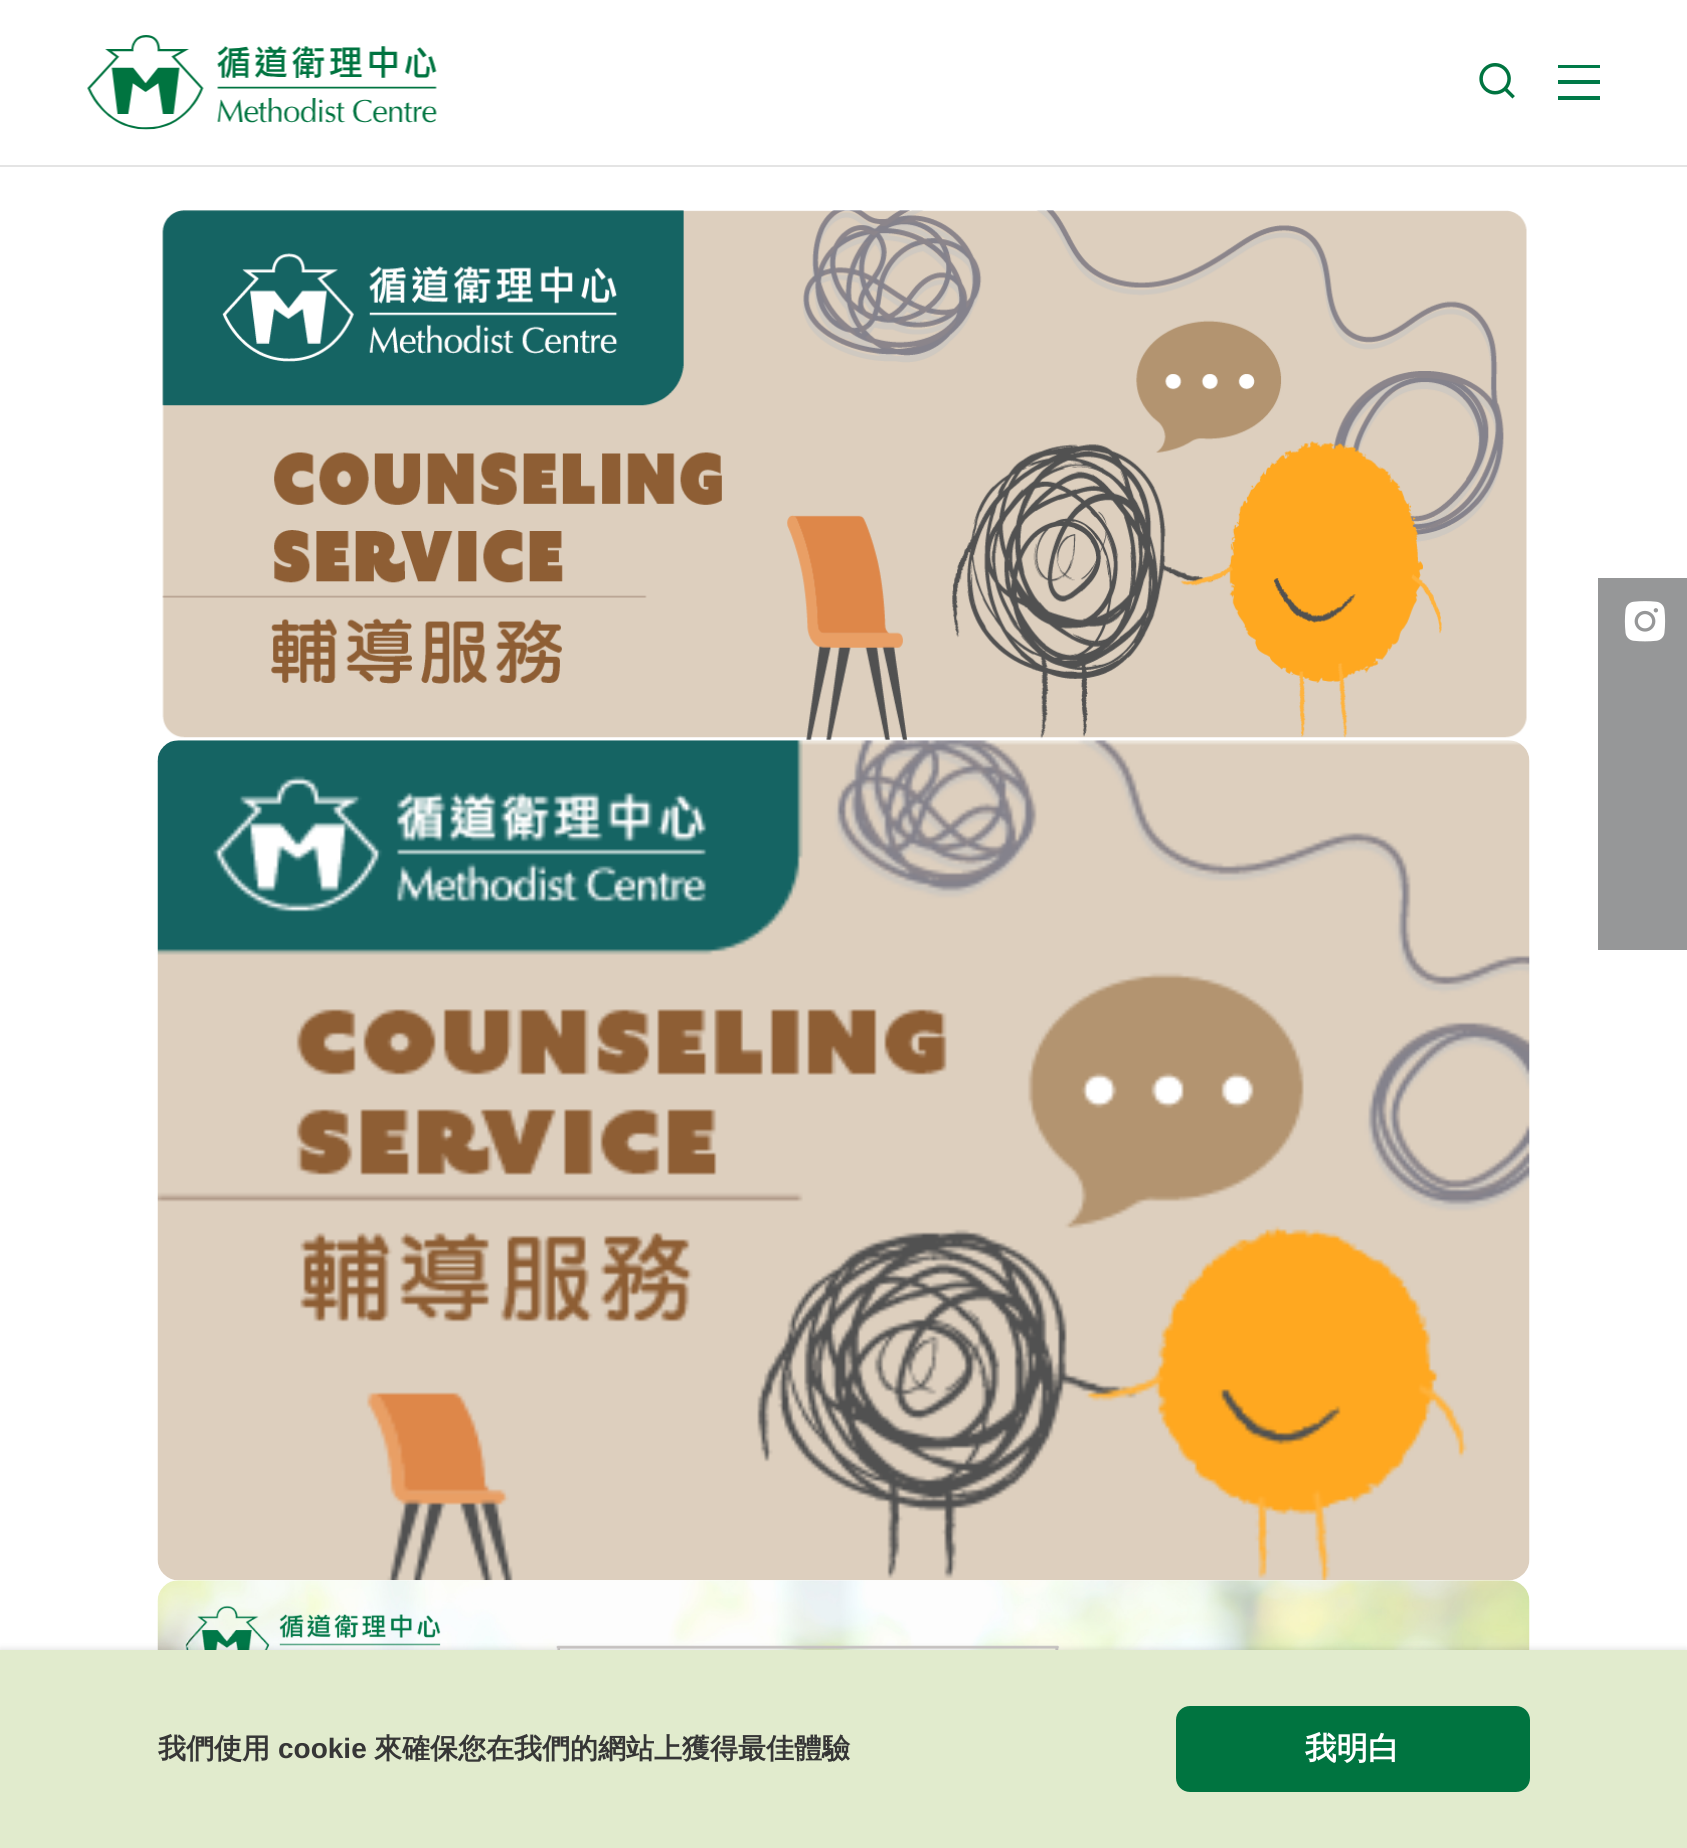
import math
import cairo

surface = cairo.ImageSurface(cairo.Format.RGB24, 1687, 1848)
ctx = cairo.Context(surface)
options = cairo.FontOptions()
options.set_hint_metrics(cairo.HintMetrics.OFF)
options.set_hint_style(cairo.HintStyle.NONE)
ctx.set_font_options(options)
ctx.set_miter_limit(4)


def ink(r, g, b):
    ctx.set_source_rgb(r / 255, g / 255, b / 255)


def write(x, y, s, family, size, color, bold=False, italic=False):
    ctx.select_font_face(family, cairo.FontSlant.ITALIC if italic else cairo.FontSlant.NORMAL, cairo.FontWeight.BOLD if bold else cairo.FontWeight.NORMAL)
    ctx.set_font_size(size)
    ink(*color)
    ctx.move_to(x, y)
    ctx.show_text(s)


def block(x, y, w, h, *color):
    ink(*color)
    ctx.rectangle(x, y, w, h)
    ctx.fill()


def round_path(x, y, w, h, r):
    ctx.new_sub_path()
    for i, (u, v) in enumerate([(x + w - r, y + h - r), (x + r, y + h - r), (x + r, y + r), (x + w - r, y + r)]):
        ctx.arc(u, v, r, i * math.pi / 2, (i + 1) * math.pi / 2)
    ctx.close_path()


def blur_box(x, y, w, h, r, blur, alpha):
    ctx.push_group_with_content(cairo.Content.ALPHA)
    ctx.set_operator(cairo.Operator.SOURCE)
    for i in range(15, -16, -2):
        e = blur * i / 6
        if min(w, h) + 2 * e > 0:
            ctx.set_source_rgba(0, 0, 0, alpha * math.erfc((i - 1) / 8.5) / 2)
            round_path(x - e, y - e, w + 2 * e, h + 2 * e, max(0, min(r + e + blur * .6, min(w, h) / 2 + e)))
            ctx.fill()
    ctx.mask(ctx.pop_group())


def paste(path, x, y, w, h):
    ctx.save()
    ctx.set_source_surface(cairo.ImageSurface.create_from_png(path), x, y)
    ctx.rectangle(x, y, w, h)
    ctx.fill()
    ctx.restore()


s1 = dict(family="WenQuanYi Zen Hei", size=28, color=(54, 54, 54), bold=True)
s2 = dict(family="Liberation Sans", size=28, color=(54, 54, 54), bold=True)
s3 = dict(family="WenQuanYi Zen Hei", size=31.5, color=(255, 255, 255), bold=True)

ink(255, 255, 255)
ctx.paint()
block(0, 165, 1687, 2, 228, 228, 228)
paste("pic1.png", 87, 35, 350, 95)
paste("pic2.png", 1479, 63, 36, 36)
block(1558, 65, 42, 3, 0, 122, 72)
block(1558, 80, 42, 4, 0, 122, 72)
block(1558, 96, 42, 4, 0, 122, 72)
paste("pic3.png", 162, 210, 1365, 531)
paste("pic4.png", 157, 740, 1373, 841)
paste("pic5.png", 157, 1580, 1373, 70)
block(1598, 578, 89, 372, 150, 151, 152)
paste("pic6.png", 1624, 601, 42, 41)
ink(0, 0, 0)
blur_box(0, 1649, 1687, 197, 0, 3.5, 0.12)
block(0, 1650, 1687, 198, 225, 235, 205)
write(158, 1758, "我們使用", **s1)
write(278, 1758, "cookie", **s2)
write(374, 1758, "來確保您在我們的網站上獲得最佳體驗", **s1)
ink(0, 116, 64)
round_path(1177, 1707, 352, 84, 13)
ctx.fill_preserve()
ctx.stroke()
write(1305, 1759, "我明白", **s3)
surface.write_to_png("screenshot.png")
